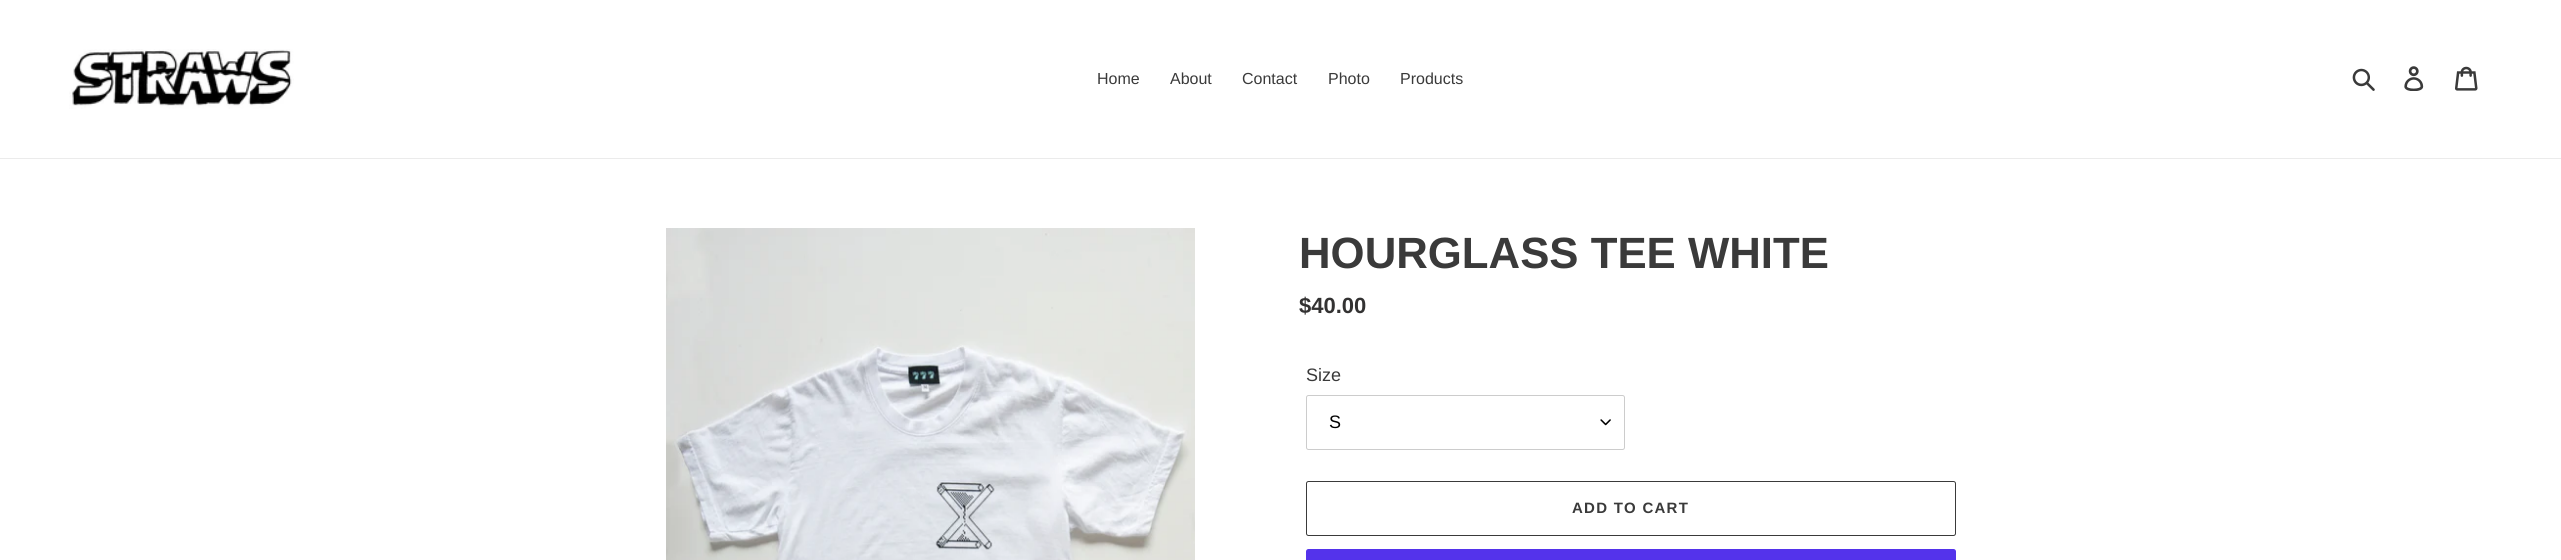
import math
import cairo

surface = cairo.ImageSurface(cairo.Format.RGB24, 2561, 560)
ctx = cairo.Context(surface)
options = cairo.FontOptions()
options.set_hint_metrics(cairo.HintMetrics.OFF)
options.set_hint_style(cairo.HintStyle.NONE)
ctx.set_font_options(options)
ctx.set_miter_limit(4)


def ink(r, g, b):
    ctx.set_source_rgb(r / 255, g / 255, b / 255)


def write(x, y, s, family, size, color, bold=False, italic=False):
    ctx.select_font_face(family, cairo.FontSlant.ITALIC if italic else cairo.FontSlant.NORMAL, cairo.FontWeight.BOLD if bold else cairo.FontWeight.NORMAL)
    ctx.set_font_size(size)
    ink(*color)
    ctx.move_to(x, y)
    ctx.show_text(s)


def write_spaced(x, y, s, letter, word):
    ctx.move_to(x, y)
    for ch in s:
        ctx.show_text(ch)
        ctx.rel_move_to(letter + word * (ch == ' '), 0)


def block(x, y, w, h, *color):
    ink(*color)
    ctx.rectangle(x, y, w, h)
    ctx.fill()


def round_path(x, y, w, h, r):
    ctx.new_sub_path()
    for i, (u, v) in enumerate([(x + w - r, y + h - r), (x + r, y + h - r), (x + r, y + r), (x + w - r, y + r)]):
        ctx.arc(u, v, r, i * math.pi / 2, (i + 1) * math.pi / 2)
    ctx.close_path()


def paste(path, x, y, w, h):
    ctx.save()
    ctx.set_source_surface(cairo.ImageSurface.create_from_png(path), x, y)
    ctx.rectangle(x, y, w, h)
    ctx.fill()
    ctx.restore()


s1 = dict(family="Liberation Sans", size=16, color=(58, 58, 58))
s2 = dict(family="Liberation Sans", size=43.75, color=(58, 58, 58), bold=True)
s3 = dict(family="Liberation Sans", size=22, color=(51, 50, 50), bold=True)
s4 = dict(family="Liberation Sans", size=18, color=(58, 58, 58))
s5 = dict(family="Liberation Sans", size=18, color=(0, 0, 0))

ink(255, 255, 255)
ctx.paint()
block(0, 158, 2561, 1, 235, 235, 235)
paste("pic1.png", 69, 49, 225, 60)
write(1097, 84, "Home", **s1)
write(1170, 84, "About", **s1)
write(1242, 84, "Contact", **s1)
write(1328, 84, "Photo", **s1)
write(1400, 84, "Products", **s1)
paste("pic2.png", 2352, 68, 23, 23)
paste("pic3.png", 2404, 66, 20, 25)
paste("pic4.png", 2455, 66, 23, 25)
paste("pic5.png", 666, 228, 529, 332)
write(1299, 268, "HOURGLASS TEE WHITE", **s2)
write(1299, 313, "$40.00", **s3)
write(1306, 381, "Size", **s4)
paste("pic6.png", 1600, 419, 11, 7)
round_path(1306.5, 395.5, 318, 54, 2)
ink(204, 204, 204)
ctx.set_line_width(1)
ctx.stroke()
write(1329, 428, "S", **s5)
round_path(1306.5, 481.5, 649, 54, 2)
ink(58, 58, 58)
ctx.stroke()
ctx.select_font_face("Liberation Sans", cairo.FontSlant.NORMAL, cairo.FontWeight.BOLD)
ctx.set_font_size(15)
write_spaced(1572, 513, "ADD TO CART", 1.25, 0)
ink(84, 51, 235)
round_path(1306, 549, 650, 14, 2.5)
ctx.fill()
surface.write_to_png("screenshot.png")
